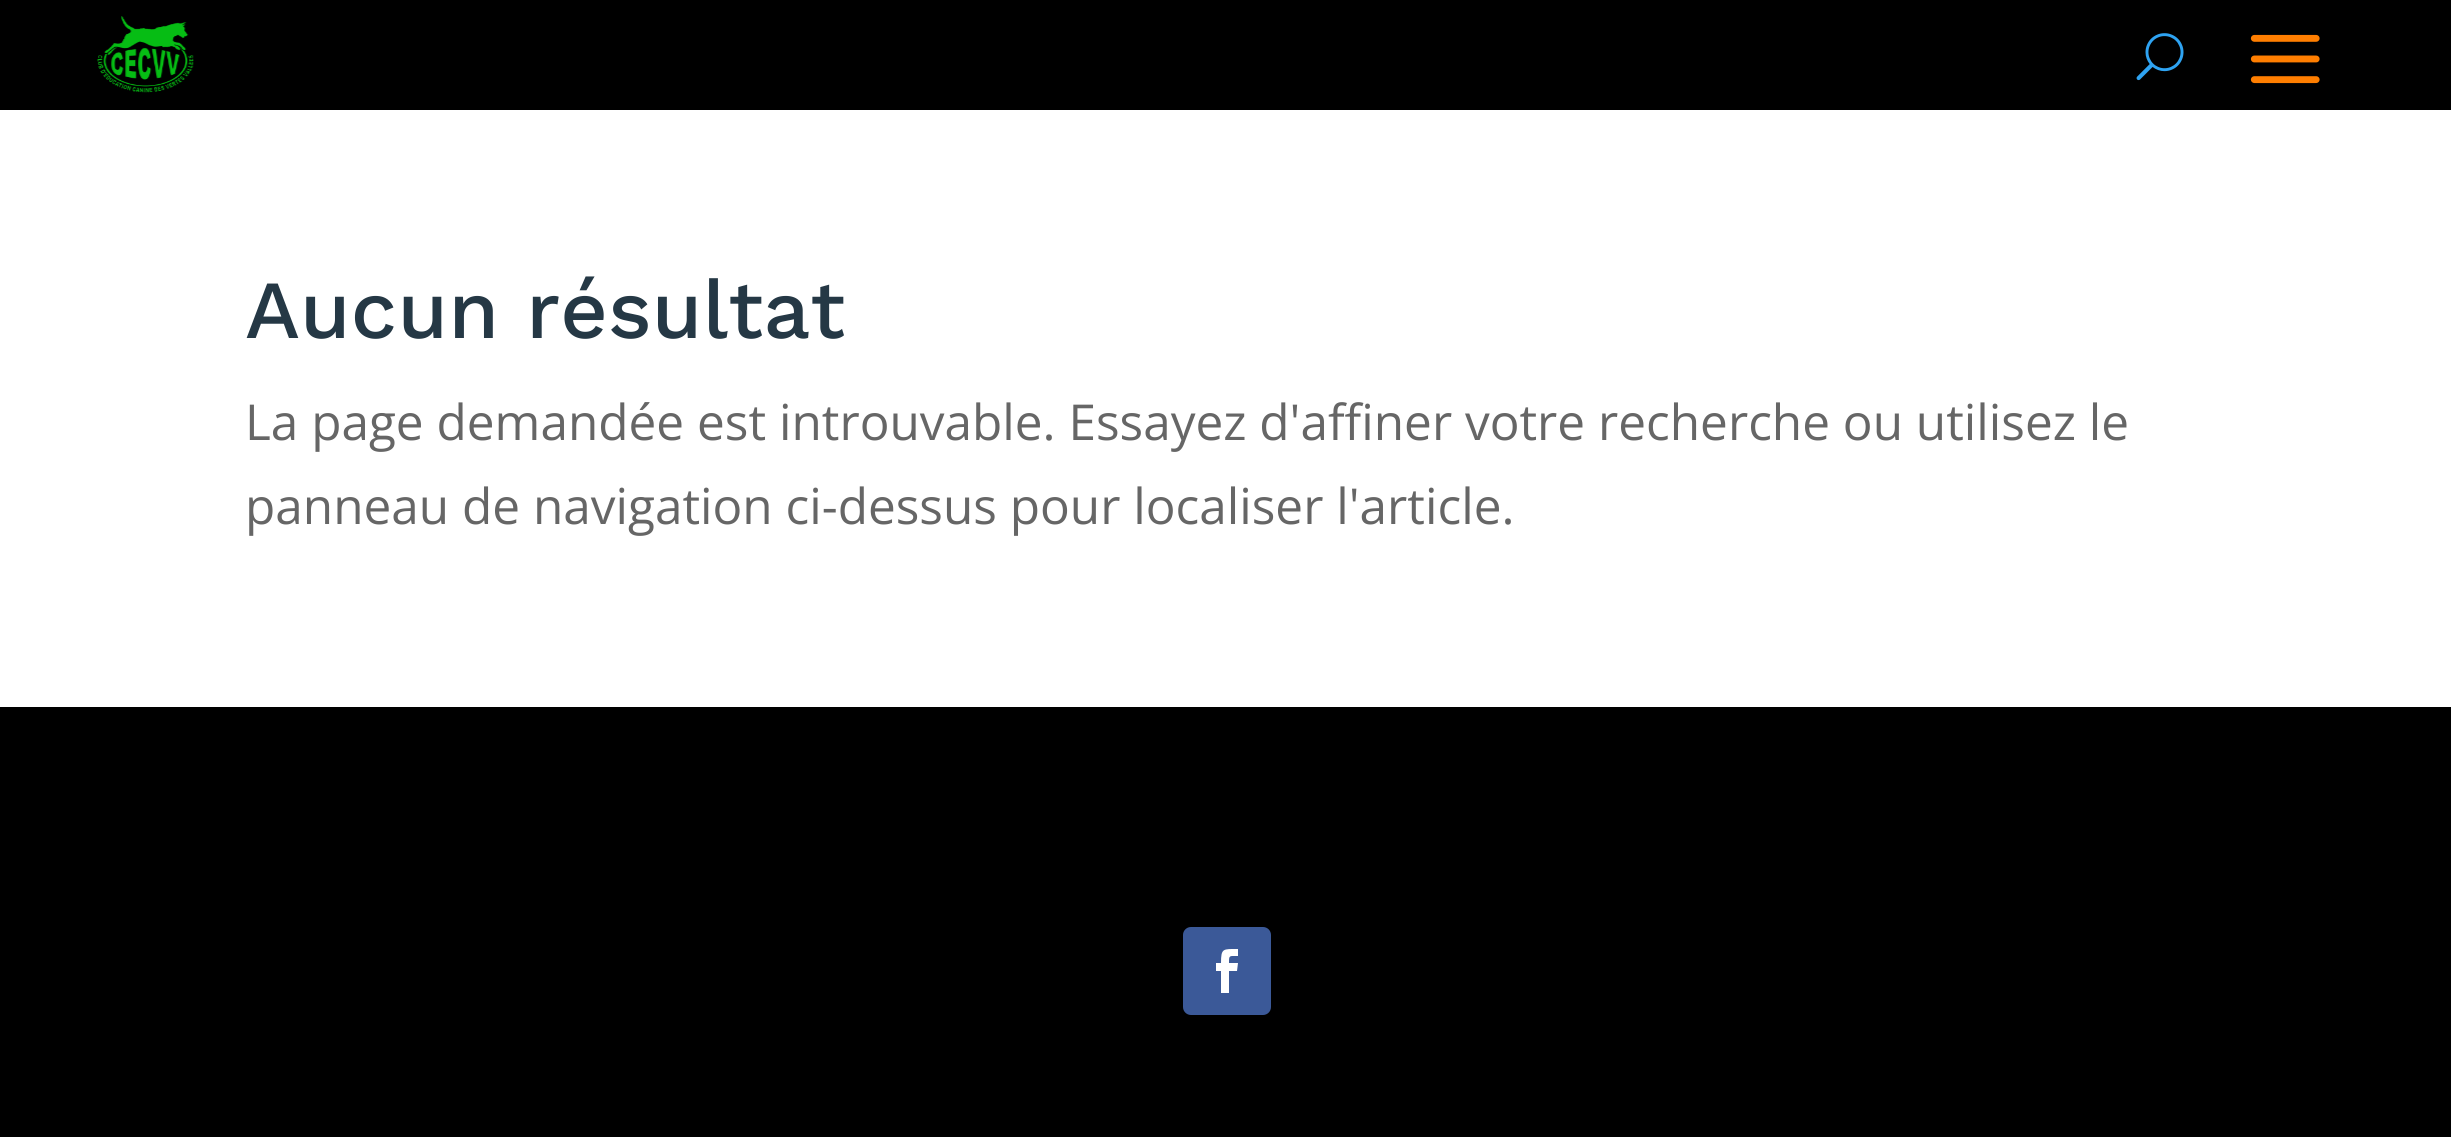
import math
import cairo

surface = cairo.ImageSurface(cairo.Format.RGB24, 2451, 1137)
ctx = cairo.Context(surface)
options = cairo.FontOptions()
options.set_hint_metrics(cairo.HintMetrics.OFF)
options.set_hint_style(cairo.HintStyle.NONE)
ctx.set_font_options(options)
ctx.set_miter_limit(4)


def ink(r, g, b):
    ctx.set_source_rgb(r / 255, g / 255, b / 255)


def write(x, y, s, family, size, color, bold=False, italic=False):
    ctx.select_font_face(family, cairo.FontSlant.ITALIC if italic else cairo.FontSlant.NORMAL, cairo.FontWeight.BOLD if bold else cairo.FontWeight.NORMAL)
    ctx.set_font_size(size)
    ink(*color)
    ctx.move_to(x, y)
    ctx.show_text(s)


def block(x, y, w, h, *color):
    ink(*color)
    ctx.rectangle(x, y, w, h)
    ctx.fill()


def round_path(x, y, w, h, r):
    ctx.new_sub_path()
    for i, (u, v) in enumerate([(x + w - r, y + h - r), (x + r, y + h - r), (x + r, y + r), (x + w - r, y + r)]):
        ctx.arc(u, v, r, i * math.pi / 2, (i + 1) * math.pi / 2)
    ctx.close_path()


def paste(path, x, y, w, h):
    ctx.save()
    ctx.set_source_surface(cairo.ImageSurface.create_from_png(path), x, y)
    ctx.rectangle(x, y, w, h)
    ctx.fill()
    ctx.restore()


s1 = dict(family="Work Sans Medium", size=82.5, color=(37, 56, 69))
s2 = dict(family="Open Sans", size=49.5, color=(102, 102, 102))

ink(255, 255, 255)
ctx.paint()
block(0, 0, 2451, 110, 0, 0, 0)
paste("pic1.png", 97, 16, 97, 77)
paste("pic2.png", 2136, 33, 48, 48)
paste("pic3.png", 2250, 34, 70, 50)
write(245, 338, "Aucun résultat", **s1)
write(245, 440, "La page demandée est introuvable. Essayez d'affiner votre recherche ou utilisez le", **s2)
write(245, 524, "panneau de navigation ci-dessus pour localiser l'article.", **s2)
block(0, 707, 2451, 430, 0, 0, 0)
ink(59, 89, 152)
round_path(1183, 927, 88, 88, 8)
ctx.fill()
ink(255, 255, 255)
ctx.new_path()
ctx.move_to(1221, 993)
ctx.line_to(1229, 993)
ctx.line_to(1229, 971)
ctx.line_to(1237, 971)
ctx.line_to(1238, 963)
ctx.line_to(1229, 963)
ctx.curve_to(1229, 955, 1229, 956, 1238, 956)
ctx.line_to(1238, 949)
ctx.curve_to(1223, 949, 1221, 948, 1221, 963)
ctx.line_to(1216, 963)
ctx.line_to(1216, 971)
ctx.line_to(1221, 971)
ctx.close_path()
ctx.fill()
surface.write_to_png("screenshot.png")
